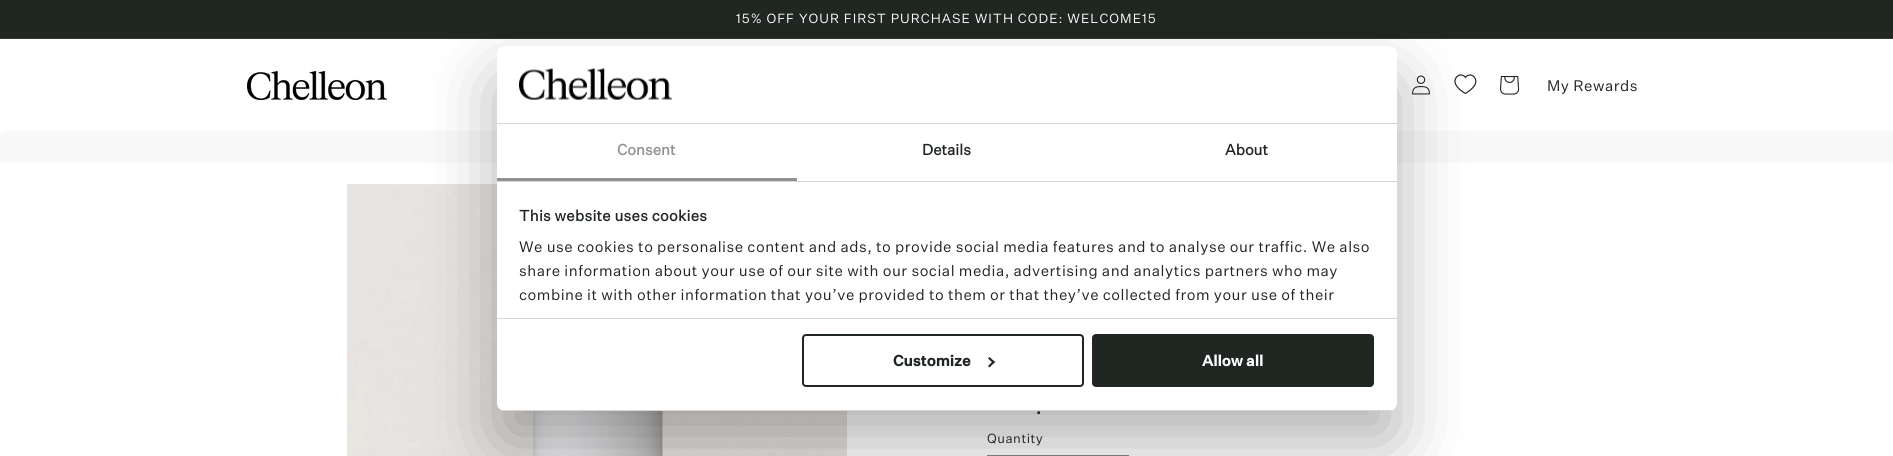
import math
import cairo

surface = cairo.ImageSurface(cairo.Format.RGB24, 1893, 456)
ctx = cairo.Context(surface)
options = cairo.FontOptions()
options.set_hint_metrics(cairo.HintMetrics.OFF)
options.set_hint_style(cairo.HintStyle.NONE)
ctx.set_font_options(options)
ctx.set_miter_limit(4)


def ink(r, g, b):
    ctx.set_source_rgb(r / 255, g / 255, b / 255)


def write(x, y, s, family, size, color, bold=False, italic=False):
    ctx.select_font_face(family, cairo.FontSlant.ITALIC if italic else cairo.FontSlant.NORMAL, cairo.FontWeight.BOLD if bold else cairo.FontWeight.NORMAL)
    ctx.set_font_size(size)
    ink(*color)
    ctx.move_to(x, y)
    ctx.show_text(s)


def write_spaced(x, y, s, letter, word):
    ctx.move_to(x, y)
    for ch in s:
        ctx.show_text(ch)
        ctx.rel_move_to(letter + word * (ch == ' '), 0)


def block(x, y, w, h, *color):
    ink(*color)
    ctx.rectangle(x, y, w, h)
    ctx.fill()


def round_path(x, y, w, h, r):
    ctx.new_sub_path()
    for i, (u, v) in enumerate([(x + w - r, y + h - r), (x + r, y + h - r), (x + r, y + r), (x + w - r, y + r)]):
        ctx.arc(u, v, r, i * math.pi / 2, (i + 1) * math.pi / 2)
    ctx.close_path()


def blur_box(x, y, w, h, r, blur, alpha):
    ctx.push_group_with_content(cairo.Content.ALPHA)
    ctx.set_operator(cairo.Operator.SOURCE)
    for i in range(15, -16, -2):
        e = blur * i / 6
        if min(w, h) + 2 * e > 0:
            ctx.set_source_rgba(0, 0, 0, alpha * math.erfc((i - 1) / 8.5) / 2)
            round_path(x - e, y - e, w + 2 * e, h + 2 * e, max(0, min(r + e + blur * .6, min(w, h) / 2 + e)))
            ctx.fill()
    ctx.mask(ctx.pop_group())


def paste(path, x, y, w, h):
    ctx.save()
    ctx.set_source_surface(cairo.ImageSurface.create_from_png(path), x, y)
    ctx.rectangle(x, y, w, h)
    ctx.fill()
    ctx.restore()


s1 = dict(family="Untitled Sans", size=15, color=(145, 145, 145), bold=True)
s2 = dict(family="Untitled Sans", size=15, color=(32, 38, 33), bold=True)
s3 = dict(family="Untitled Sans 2", size=15, color=(32, 38, 33), bold=True)
s4 = dict(family="Untitled Sans 2", size=15, color=(255, 255, 255), bold=True)

ink(255, 255, 255)
ctx.paint()
block(0, 0, 1893, 38, 32, 38, 33)
block(0, 38, 1893, 1, 50, 55, 51)
ctx.select_font_face("Untitled Sans")
ctx.set_font_size(13)
ink(255, 255, 255)
write_spaced(736, 23, "15% OFF YOUR FIRST PURCHASE WITH CODE: WELCOME15", 1, 0)
paste("pic1.png", 247, 71, 140, 29)
paste("pic2.png", 1412, 75, 18, 20)
paste("pic3.png", 1454, 74, 23, 20)
paste("pic4.png", 1500, 76, 20, 19)
ctx.set_font_size(15)
ink(32, 38, 33)
write_spaced(1547, 91, "My Rewards", 0.5, 0)
ink(249, 249, 249)
ctx.new_path()
ctx.move_to(5, 131)
ctx.line_to(1893, 131)
ctx.line_to(1893, 163)
ctx.line_to(5, 163)
ctx.curve_to(2, 163, 0, 161, 0, 158)
ctx.line_to(0, 136)
ctx.curve_to(0, 133, 2, 131, 5, 131)
ctx.close_path()
ctx.fill()
paste("pic6.png", 347, 184, 500, 272)
ctx.rectangle(987.5, 455.5, 141, 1)
ink(132, 136, 133)
ctx.set_line_width(1)
ctx.stroke()
ink(0, 0, 0)
blur_box(497, 78, 900, 365, 8, 34, 0.3)
ink(255, 255, 255)
round_path(497, 46, 900, 365, 8)
ctx.fill()
block(497, 123, 900, 1, 214, 214, 214)
paste("pic5.png", 519, 68, 153, 32)
block(497, 181, 900, 1, 214, 214, 214)
block(497, 178, 300, 3, 145, 145, 145)
write(617, 155, "Consent", **s1)
write(922, 155, "Details", **s2)
write(1225, 155, "About", **s2)
block(497, 318, 900, 1, 214, 214, 214)
ink(32, 38, 33)
write_spaced(519, 221, "This website uses cookies", 0.25, 0)
ctx.select_font_face("Untitled Sans")
write_spaced(519, 252, "We use cookies to personalise content and ads, to provide social media features and to analyse our traffic. We also", 0.5, 0)
write_spaced(519, 276, "share information about your use of our site with our social media, advertising and analytics partners who may", 0.5, 0)
write_spaced(519, 300, "combine it with other information that you’ve provided to them or that they’ve collected from your use of their", 0.5, 0)
ctx.save()
round_path(497, 46, 900, 365, 8)
ctx.clip()
block(497, 410, 900, 1, 214, 214, 214)
ctx.restore()
round_path(803, 335, 280, 51, 3)
ctx.set_line_width(2)
ctx.stroke()
write(893, 366, "Customize", **s3)
ctx.new_path()
ctx.move_to(989.5, 357)
ctx.line_to(995, 362)
ctx.line_to(993.5, 363.5)
ctx.line_to(988, 358.5)
ctx.close_path()
ctx.fill()
ctx.new_path()
ctx.move_to(993.5, 360.5)
ctx.line_to(995, 362)
ctx.line_to(989.5, 367.5)
ctx.line_to(988, 366)
ctx.close_path()
ctx.fill()
round_path(1093, 335, 280, 51, 3)
ctx.fill_preserve()
ctx.stroke()
write(1202, 366, "Allow all", **s4)
ctx.select_font_face("Untitled Sans")
ctx.set_font_size(24)
ink(32, 38, 33)
write_spaced(1035, 414, ".", 1, 0)
ctx.set_font_size(13)
write_spaced(987, 443, "Quantity", 0.5, 0)
surface.write_to_png("screenshot.png")
